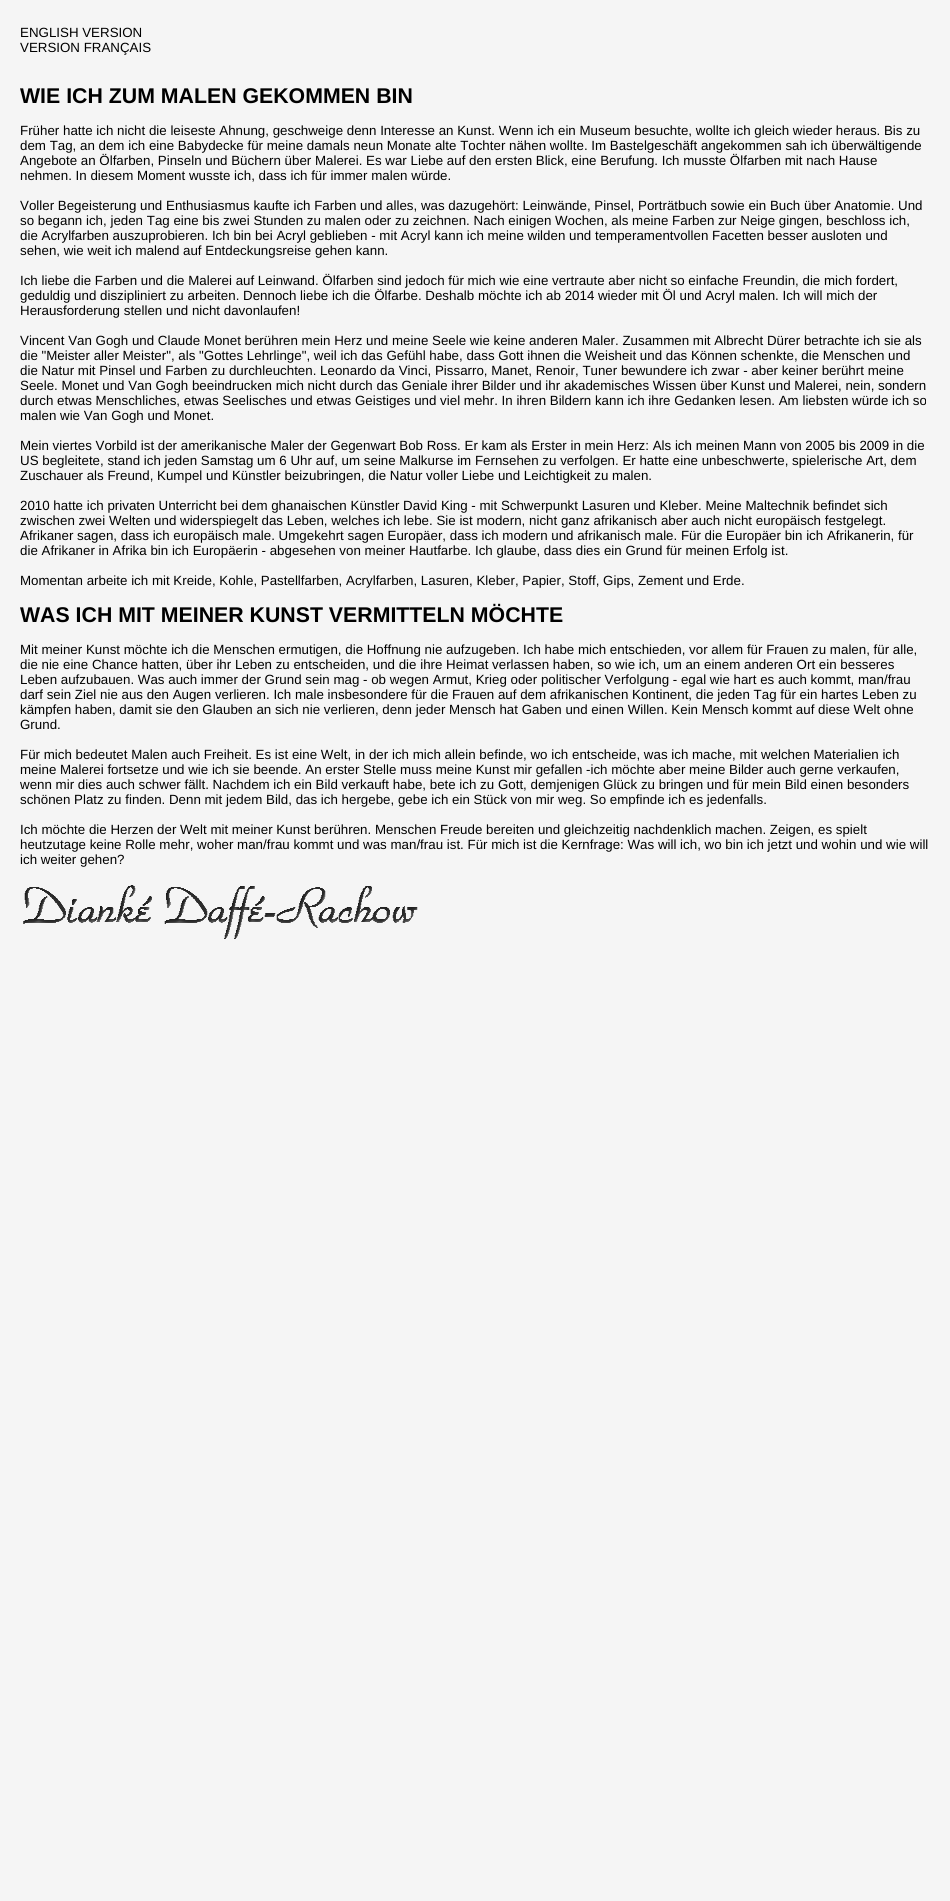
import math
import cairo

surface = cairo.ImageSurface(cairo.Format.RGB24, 950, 1901)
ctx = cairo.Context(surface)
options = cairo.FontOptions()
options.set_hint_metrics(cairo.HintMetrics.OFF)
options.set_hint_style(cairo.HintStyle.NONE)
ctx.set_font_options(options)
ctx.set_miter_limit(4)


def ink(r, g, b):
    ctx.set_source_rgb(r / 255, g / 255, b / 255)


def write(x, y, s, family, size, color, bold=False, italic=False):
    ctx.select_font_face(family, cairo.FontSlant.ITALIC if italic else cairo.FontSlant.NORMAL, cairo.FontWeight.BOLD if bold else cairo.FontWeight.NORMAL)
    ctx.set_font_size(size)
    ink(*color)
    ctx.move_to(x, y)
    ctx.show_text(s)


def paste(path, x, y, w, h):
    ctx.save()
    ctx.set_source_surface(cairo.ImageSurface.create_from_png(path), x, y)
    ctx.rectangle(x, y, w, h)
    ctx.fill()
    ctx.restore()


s1 = dict(family="Liberation Sans", size=13.33, color=(0, 0, 0))
s2 = dict(family="Liberation Sans", size=21.3, color=(0, 0, 0), bold=True)

ink(245, 245, 245)
ctx.paint()
write(20, 37, "ENGLISH VERSION", **s1)
write(20, 52, "VERSION FRANÇAIS", **s1)
write(20, 103, "WIE ICH ZUM MALEN GEKOMMEN BIN", **s2)
write(20, 135, "Früher hatte ich nicht die leiseste Ahnung, geschweige denn Interesse an Kunst. Wenn ich ein Museum besuchte, wollte ich gleich wieder heraus. Bis zu", **s1)
write(20, 150, "dem Tag, an dem ich eine Babydecke für meine damals neun Monate alte Tochter nähen wollte. Im Bastelgeschäft angekommen sah ich überwältigende", **s1)
write(20, 165, "Angebote an Ölfarben, Pinseln und Büchern über Malerei. Es war Liebe auf den ersten Blick, eine Berufung. Ich musste Ölfarben mit nach Hause", **s1)
write(20, 180, "nehmen. In diesem Moment wusste ich, dass ich für immer malen würde.", **s1)
write(20, 210, "Voller Begeisterung und Enthusiasmus kaufte ich Farben und alles, was dazugehört: Leinwände, Pinsel, Porträtbuch sowie ein Buch über Anatomie. Und", **s1)
write(20, 225, "so begann ich, jeden Tag eine bis zwei Stunden zu malen oder zu zeichnen. Nach einigen Wochen, als meine Farben zur Neige gingen, beschloss ich,", **s1)
write(20, 240, "die Acrylfarben auszuprobieren. Ich bin bei Acryl geblieben - mit Acryl kann ich meine wilden und temperamentvollen Facetten besser ausloten und", **s1)
write(20, 255, "sehen, wie weit ich malend auf Entdeckungsreise gehen kann.", **s1)
write(20, 285, "Ich liebe die Farben und die Malerei auf Leinwand. Ölfarben sind jedoch für mich wie eine vertraute aber nicht so einfache Freundin, die mich fordert,", **s1)
write(20, 300, "geduldig und diszipliniert zu arbeiten. Dennoch liebe ich die Ölfarbe. Deshalb möchte ich ab 2014 wieder mit Öl und Acryl malen. Ich will mich der", **s1)
write(20, 315, "Herausforderung stellen und nicht davonlaufen!", **s1)
write(20, 345, "Vincent Van Gogh und Claude Monet berühren mein Herz und meine Seele wie keine anderen Maler. Zusammen mit Albrecht Dürer betrachte ich sie als", **s1)
write(20, 360, "die \"Meister aller Meister\", als \"Gottes Lehrlinge\", weil ich das Gefühl habe, dass Gott ihnen die Weisheit und das Können schenkte, die Menschen und", **s1)
write(20, 375, "die Natur mit Pinsel und Farben zu durchleuchten. Leonardo da Vinci, Pissarro, Manet, Renoir, Tuner bewundere ich zwar - aber keiner berührt meine", **s1)
write(20, 390, "Seele. Monet und Van Gogh beeindrucken mich nicht durch das Geniale ihrer Bilder und ihr akademisches Wissen über Kunst und Malerei, nein, sondern", **s1)
write(20, 405, "durch etwas Menschliches, etwas Seelisches und etwas Geistiges und viel mehr. In ihren Bildern kann ich ihre Gedanken lesen. Am liebsten würde ich so", **s1)
write(20, 420, "malen wie Van Gogh und Monet.", **s1)
write(20, 450, "Mein viertes Vorbild ist der amerikanische Maler der Gegenwart Bob Ross. Er kam als Erster in mein Herz: Als ich meinen Mann von 2005 bis 2009 in die", **s1)
write(20, 465, "US begleitete, stand ich jeden Samstag um 6 Uhr auf, um seine Malkurse im Fernsehen zu verfolgen. Er hatte eine unbeschwerte, spielerische Art, dem", **s1)
write(20, 480, "Zuschauer als Freund, Kumpel und Künstler beizubringen, die Natur voller Liebe und Leichtigkeit zu malen.", **s1)
write(20, 510, "2010 hatte ich privaten Unterricht bei dem ghanaischen Künstler David King - mit Schwerpunkt Lasuren und Kleber. Meine Maltechnik befindet sich", **s1)
write(20, 525, "zwischen zwei Welten und widerspiegelt das Leben, welches ich lebe. Sie ist modern, nicht ganz afrikanisch aber auch nicht europäisch festgelegt.", **s1)
write(20, 540, "Afrikaner sagen, dass ich europäisch male. Umgekehrt sagen Europäer, dass ich modern und afrikanisch male. Für die Europäer bin ich Afrikanerin, für", **s1)
write(20, 555, "die Afrikaner in Afrika bin ich Europäerin - abgesehen von meiner Hautfarbe. Ich glaube, dass dies ein Grund für meinen Erfolg ist.", **s1)
write(20, 585, "Momentan arbeite ich mit Kreide, Kohle, Pastellfarben, Acrylfarben, Lasuren, Kleber, Papier, Stoff, Gips, Zement und Erde.", **s1)
write(20, 622, "WAS ICH MIT MEINER KUNST VERMITTELN MÖCHTE", **s2)
write(20, 654, "Mit meiner Kunst möchte ich die Menschen ermutigen, die Hoffnung nie aufzugeben. Ich habe mich entschieden, vor allem für Frauen zu malen, für alle,", **s1)
write(20, 669, "die nie eine Chance hatten, über ihr Leben zu entscheiden, und die ihre Heimat verlassen haben, so wie ich, um an einem anderen Ort ein besseres", **s1)
write(20, 684, "Leben aufzubauen. Was auch immer der Grund sein mag - ob wegen Armut, Krieg oder politischer Verfolgung - egal wie hart es auch kommt, man/frau", **s1)
write(20, 699, "darf sein Ziel nie aus den Augen verlieren. Ich male insbesondere für die Frauen auf dem afrikanischen Kontinent, die jeden Tag für ein hartes Leben zu", **s1)
write(20, 714, "kämpfen haben, damit sie den Glauben an sich nie verlieren, denn jeder Mensch hat Gaben und einen Willen. Kein Mensch kommt auf diese Welt ohne", **s1)
write(20, 729, "Grund.", **s1)
write(20, 759, "Für mich bedeutet Malen auch Freiheit. Es ist eine Welt, in der ich mich allein befinde, wo ich entscheide, was ich mache, mit welchen Materialien ich", **s1)
write(20, 774, "meine Malerei fortsetze und wie ich sie beende. An erster Stelle muss meine Kunst mir gefallen -ich möchte aber meine Bilder auch gerne verkaufen,", **s1)
write(20, 789, "wenn mir dies auch schwer fällt. Nachdem ich ein Bild verkauft habe, bete ich zu Gott, demjenigen Glück zu bringen und für mein Bild einen besonders", **s1)
write(20, 804, "schönen Platz zu finden. Denn mit jedem Bild, das ich hergebe, gebe ich ein Stück von mir weg. So empfinde ich es jedenfalls.", **s1)
write(20, 834, "Ich möchte die Herzen der Welt mit meiner Kunst berühren. Menschen Freude bereiten und gleichzeitig nachdenklich machen. Zeigen, es spielt", **s1)
write(20, 849, "heutzutage keine Rolle mehr, woher man/frau kommt und was man/frau ist. Für mich ist die Kernfrage: Was will ich, wo bin ich jetzt und wohin und wie will", **s1)
write(20, 864, "ich weiter gehen?", **s1)
paste("pic1.png", 23, 885, 395, 54)
surface.write_to_png("screenshot.png")
